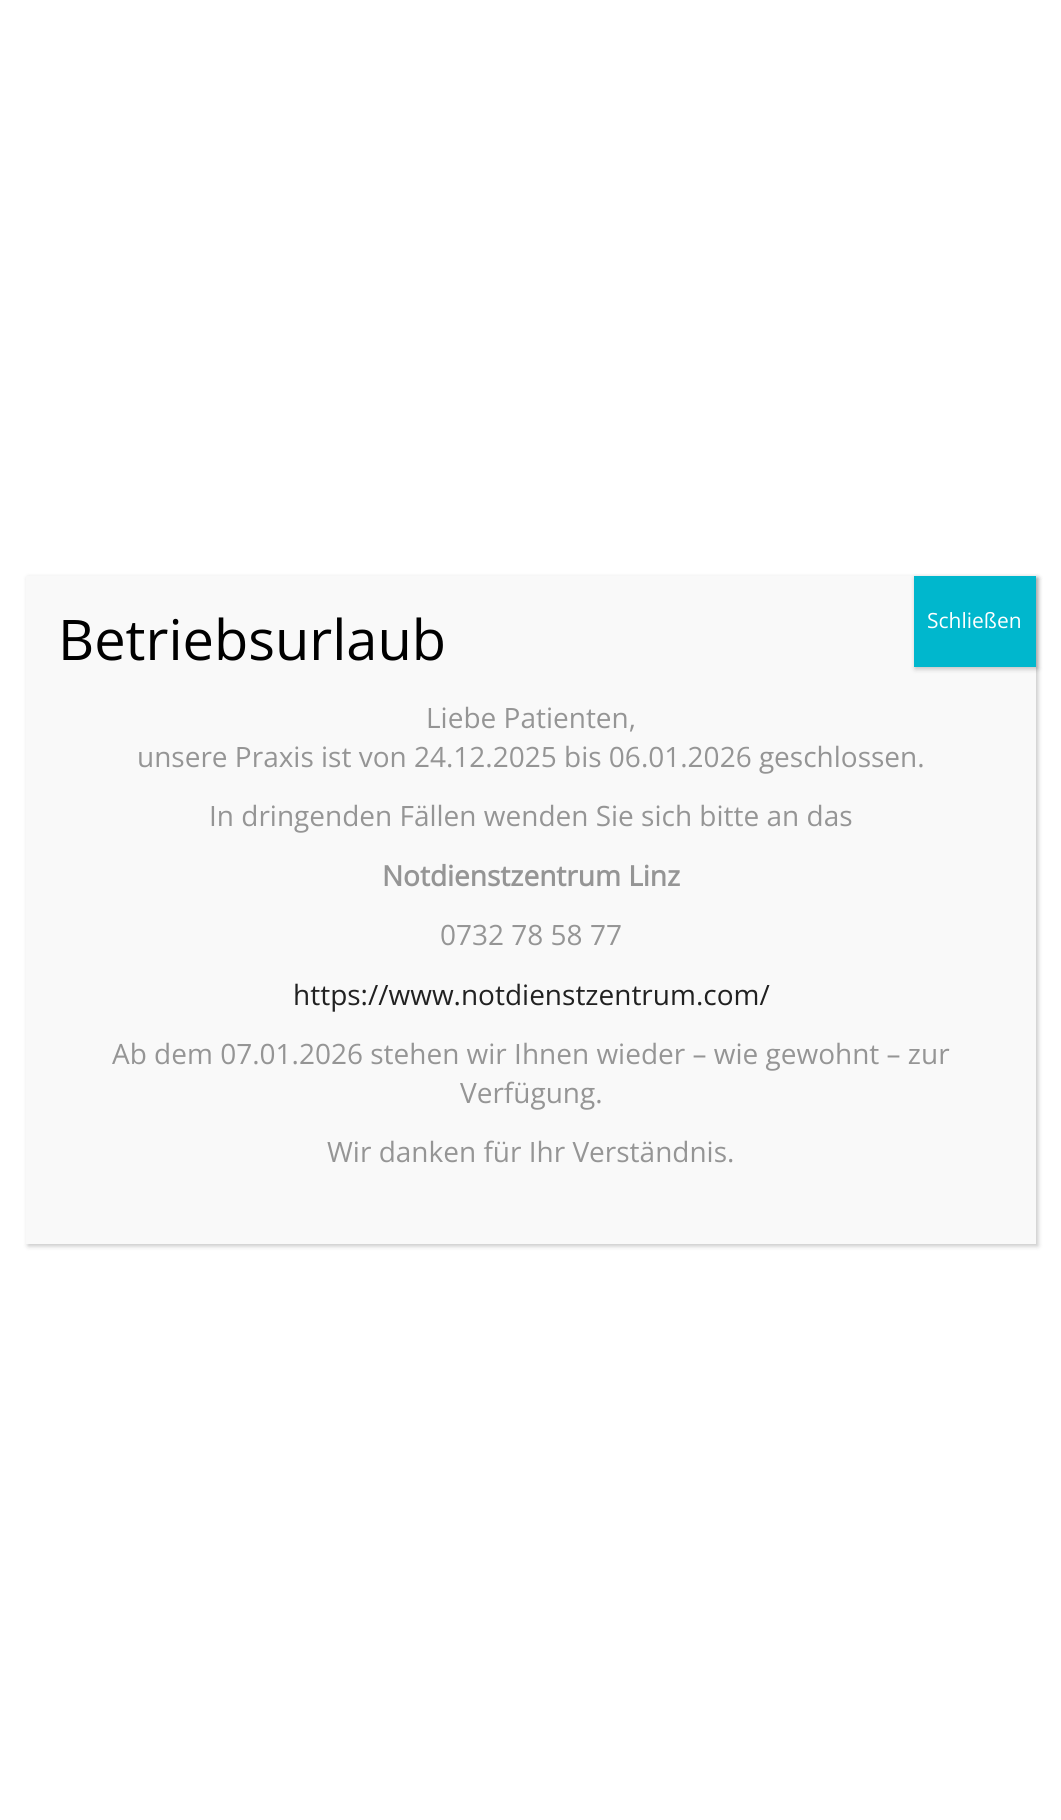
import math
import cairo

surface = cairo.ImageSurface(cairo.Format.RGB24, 1061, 1820)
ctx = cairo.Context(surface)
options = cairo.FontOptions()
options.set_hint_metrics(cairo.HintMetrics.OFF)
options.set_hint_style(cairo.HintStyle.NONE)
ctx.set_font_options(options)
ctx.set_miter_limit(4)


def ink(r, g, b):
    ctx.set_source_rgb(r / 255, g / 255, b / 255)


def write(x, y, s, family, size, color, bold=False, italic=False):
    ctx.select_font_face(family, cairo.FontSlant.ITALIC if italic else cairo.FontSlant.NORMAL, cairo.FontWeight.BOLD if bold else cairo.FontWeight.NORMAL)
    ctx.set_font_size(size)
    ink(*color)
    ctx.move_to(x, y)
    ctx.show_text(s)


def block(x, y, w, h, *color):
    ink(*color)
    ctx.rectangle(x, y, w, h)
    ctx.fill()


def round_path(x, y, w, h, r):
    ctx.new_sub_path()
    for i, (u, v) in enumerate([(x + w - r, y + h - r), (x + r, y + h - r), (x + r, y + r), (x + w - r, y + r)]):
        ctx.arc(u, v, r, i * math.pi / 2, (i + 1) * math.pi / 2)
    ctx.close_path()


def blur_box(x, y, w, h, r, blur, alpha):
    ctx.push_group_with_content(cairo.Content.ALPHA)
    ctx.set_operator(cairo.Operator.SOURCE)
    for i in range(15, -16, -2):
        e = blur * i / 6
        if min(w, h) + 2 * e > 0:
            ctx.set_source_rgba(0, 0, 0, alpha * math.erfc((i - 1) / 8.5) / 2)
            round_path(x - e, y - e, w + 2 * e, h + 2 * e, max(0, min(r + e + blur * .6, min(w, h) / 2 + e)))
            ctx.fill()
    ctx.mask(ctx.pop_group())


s1 = dict(family="Open Sans", size=56, color=(0, 0, 0))
s2 = dict(family="Open Sans", size=21, color=(255, 255, 255))
s3 = dict(family="Open Sans", size=28, color=(149, 149, 149))
s4 = dict(family="Open Sans", size=28, color=(149, 149, 149), bold=True)
s5 = dict(family="Open Sans", size=28, color=(33, 33, 33))

ink(255, 255, 255)
ctx.paint()
ink(2, 2, 2)
blur_box(28, 578, 1010, 668, 0, 2.5, 0.23)
block(26, 576, 1010, 668, 249, 249, 249)
write(58, 660, "Betriebsurlaub", **s1)
ink(2, 2, 2)
blur_box(915, 578, 123, 91, 0, 2.5, 0.23)
block(914, 576, 122, 91, 0, 183, 205)
write(927, 628, "Schließen", **s2)
write(426, 728, "Liebe Patienten,", **s3)
write(137, 767, "unsere Praxis ist von 24.12.2025 bis 06.01.2026 geschlossen.", **s3)
write(209, 826, "In dringenden Fällen wenden Sie sich bitte an das", **s3)
write(382, 886, "Notdienstzentrum Linz", **s4)
write(440, 945, "0732 78 58 77", **s3)
write(293, 1005, "https://www.notdienstzentrum.com/", **s5)
write(112, 1064, "Ab dem 07.01.2026 stehen wir Ihnen wieder – wie gewohnt – zur", **s3)
write(460, 1103, "Verfügung.", **s3)
write(327, 1162, "Wir danken für Ihr Verständnis.", **s3)
surface.write_to_png("screenshot.png")
